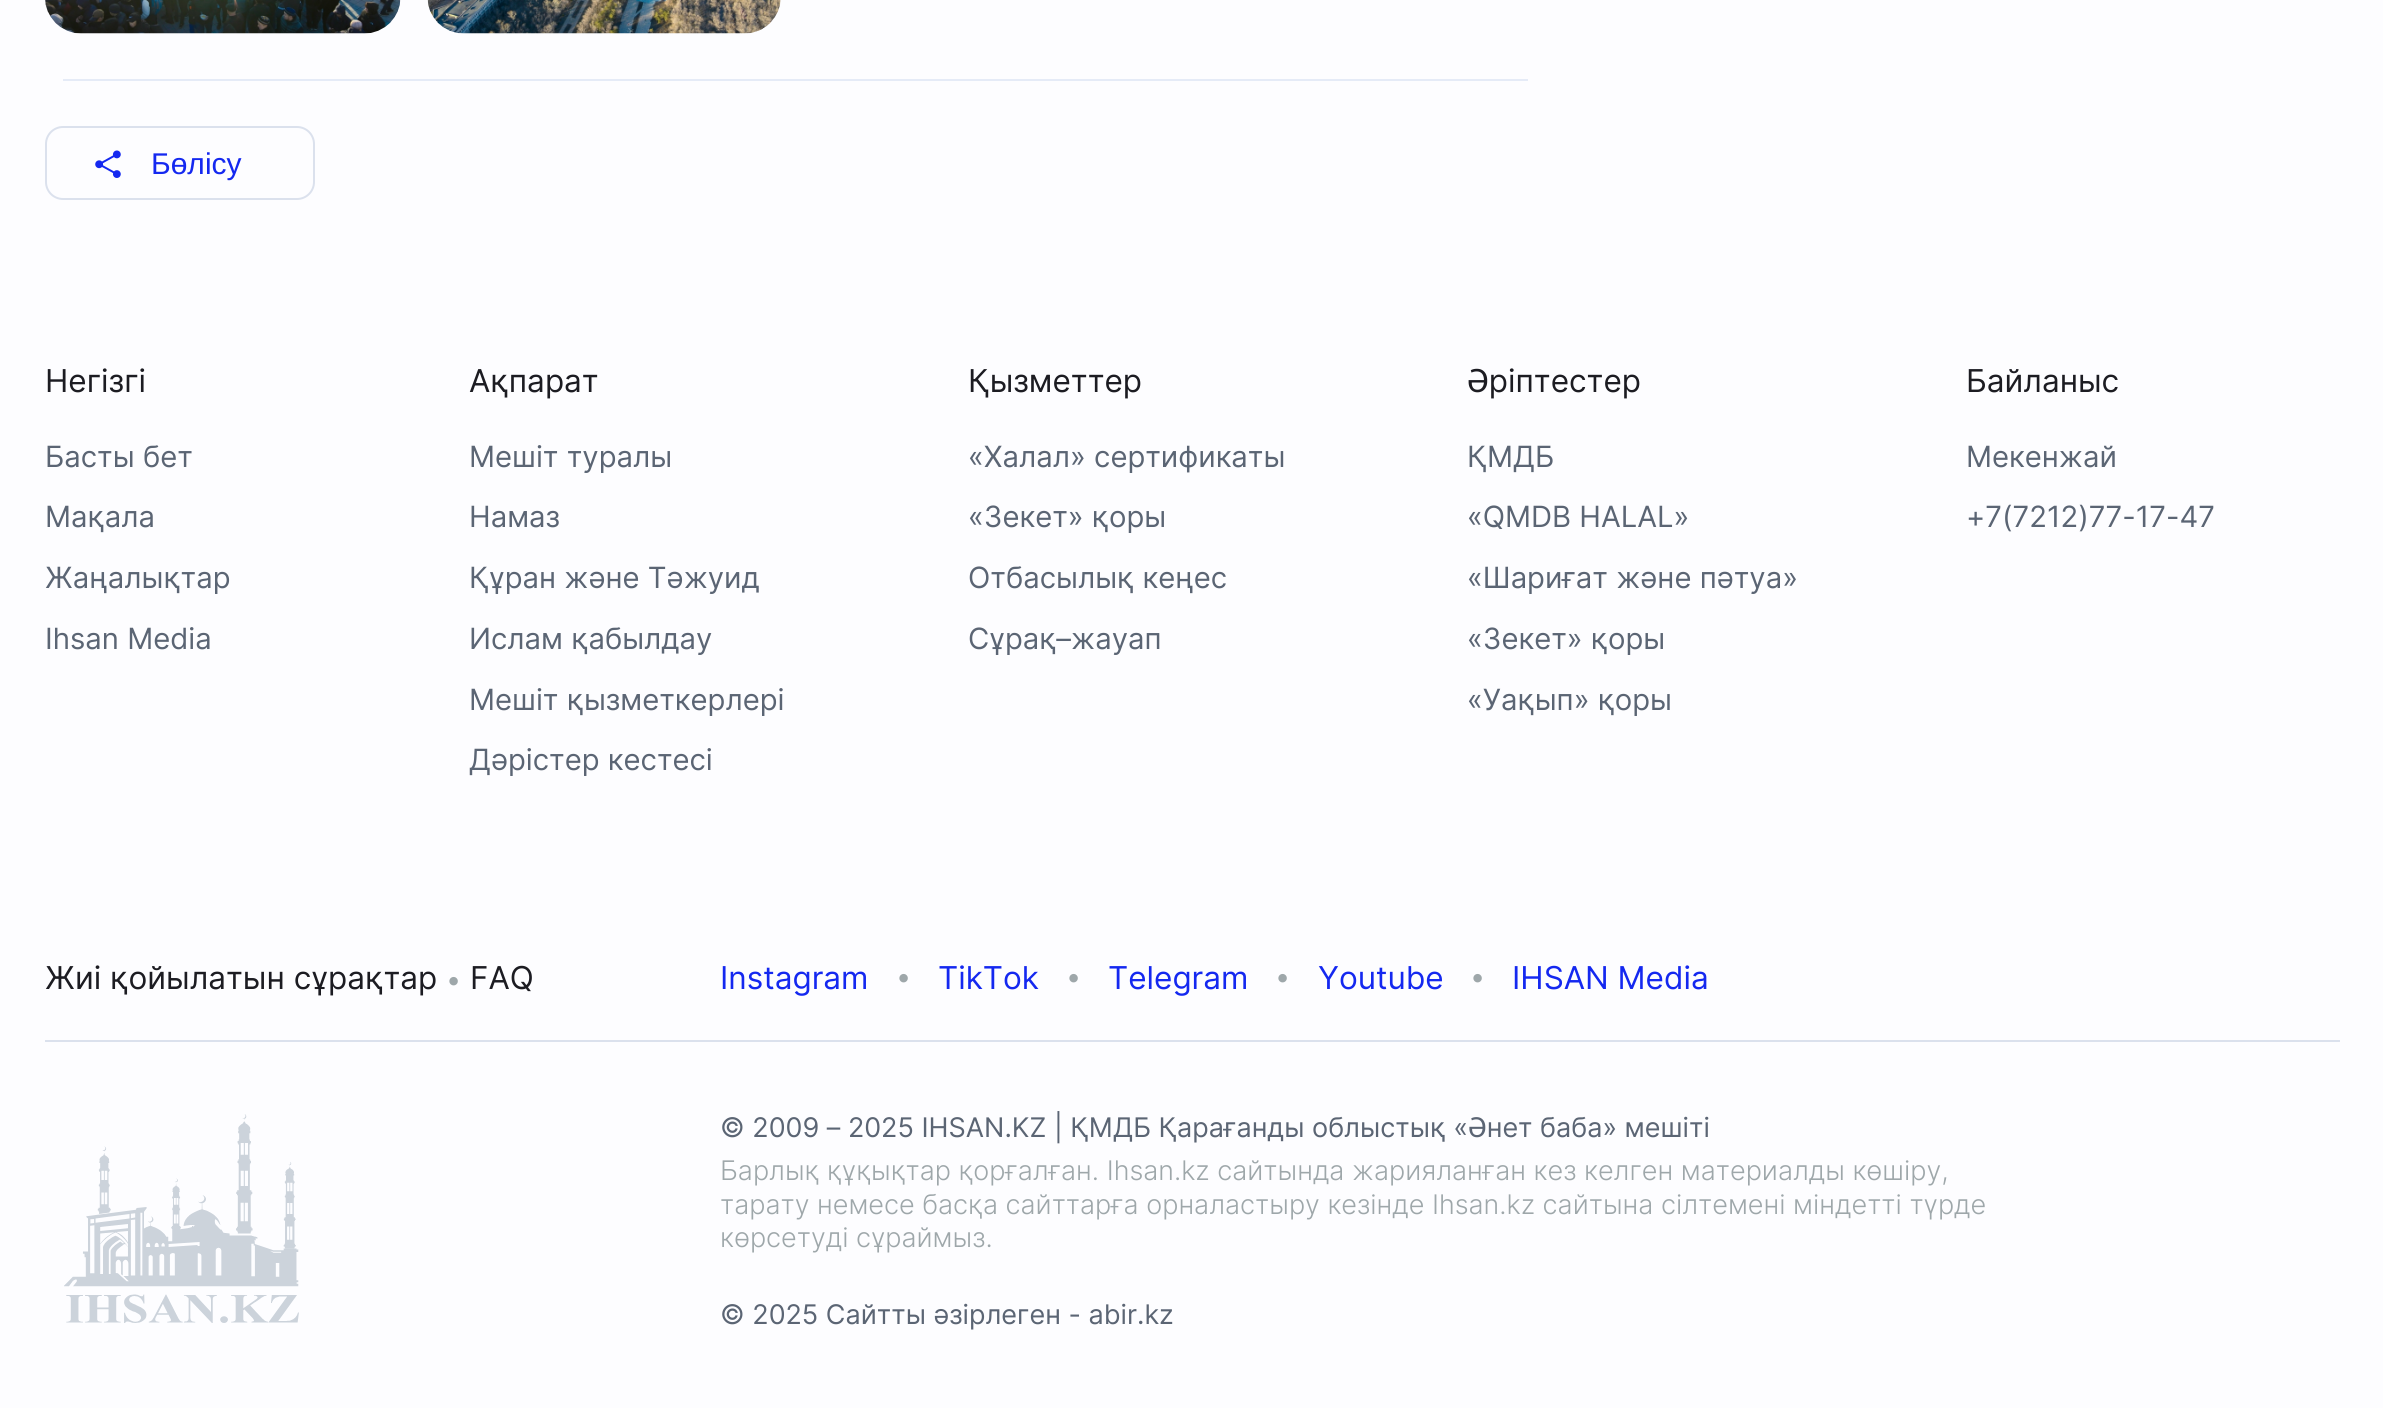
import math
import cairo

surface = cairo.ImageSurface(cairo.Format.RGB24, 2383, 1408)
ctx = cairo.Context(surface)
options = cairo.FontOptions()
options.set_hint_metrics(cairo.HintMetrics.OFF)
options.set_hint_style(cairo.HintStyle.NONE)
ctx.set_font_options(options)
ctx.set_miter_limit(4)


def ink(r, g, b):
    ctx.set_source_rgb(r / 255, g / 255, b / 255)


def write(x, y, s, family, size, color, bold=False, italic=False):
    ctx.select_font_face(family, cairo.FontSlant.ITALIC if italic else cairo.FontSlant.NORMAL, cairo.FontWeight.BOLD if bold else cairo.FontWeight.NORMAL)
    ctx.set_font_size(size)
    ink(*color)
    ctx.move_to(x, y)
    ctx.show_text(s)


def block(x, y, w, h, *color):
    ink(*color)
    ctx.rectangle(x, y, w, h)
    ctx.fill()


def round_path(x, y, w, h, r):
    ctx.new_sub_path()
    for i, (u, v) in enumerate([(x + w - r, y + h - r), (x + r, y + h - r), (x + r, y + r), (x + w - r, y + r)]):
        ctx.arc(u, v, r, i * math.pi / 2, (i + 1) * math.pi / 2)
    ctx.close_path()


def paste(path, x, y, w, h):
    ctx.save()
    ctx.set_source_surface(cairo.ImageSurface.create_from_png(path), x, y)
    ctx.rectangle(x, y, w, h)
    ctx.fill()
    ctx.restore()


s1 = dict(family="Liberation Sans", size=30, color=(20, 40, 240))
s2 = dict(family="Inter", size=31.5, color=(28, 28, 34))
s3 = dict(family="Inter", size=29.25, color=(91, 101, 116))
s4 = dict(family="Inter", size=27, color=(158, 167, 170))
s5 = dict(family="Inter", size=31.5, color=(20, 40, 240))
s6 = dict(family="Inter", size=27, color=(91, 101, 116))
s7 = dict(family="Inter Light", size=27, color=(158, 167, 170))

ink(253, 253, 255)
ctx.paint()
paste("pic1.png", 45, 0, 356, 34)
paste("pic2.png", 427, 0, 354, 34)
block(63, 79, 1465, 2, 229, 235, 247)
round_path(46, 127, 268, 72, 17)
ink(219, 225, 237)
ctx.stroke()
paste("pic3.png", 95, 150, 26, 28)
write(151, 174, "Бөлісу", **s1)
write(45, 392, "Негізгі", **s2)
write(45, 467, "Басты бет", **s3)
write(45, 527, "Мақала", **s3)
write(45, 588, "Жаңалықтар", **s3)
write(45, 649, "Ihsan Media", **s3)
write(469, 392, "Ақпарат", **s2)
write(469, 467, "Мешіт туралы", **s3)
write(469, 527, "Намаз", **s3)
write(469, 588, "Құран және Тәжуид", **s3)
write(469, 649, "Ислам қабылдау", **s3)
write(469, 710, "Мешіт қызметкерлері", **s3)
write(469, 770, "Дәрістер кестесі", **s3)
write(968, 392, "Қызметтер", **s2)
write(968, 467, "«Халал» сертификаты", **s3)
write(968, 527, "«Зекет» қоры", **s3)
write(968, 588, "Отбасылық кеңес", **s3)
write(968, 649, "Сұрақ–жауап", **s3)
write(1467, 392, "Әріптестер", **s2)
write(1467, 467, "ҚМДБ", **s3)
write(1467, 527, "«QMDB HALAL»", **s3)
write(1467, 588, "«Шариғат және пәтуа»", **s3)
write(1467, 649, "«Зекет» қоры", **s3)
write(1467, 710, "«Уақып» қоры", **s3)
write(1966, 392, "Байланыс", **s2)
write(1966, 467, "Мекенжай", **s3)
write(1966, 527, "+7(7212)77-17-47", **s3)
block(45, 1040, 2295, 2, 219, 225, 237)
write(45, 989, "Жиі қойылатын сұрақтар", **s2)
write(446, 989, "•", **s4)
write(470, 989, "FAQ", **s2)
write(720, 989, "Instagram", **s5)
write(896, 986, "•", **s4)
write(938, 989, "TikTok", **s5)
write(1066, 986, "•", **s4)
write(1108, 989, "Telegram", **s5)
write(1275, 986, "•", **s4)
write(1318, 989, "Youtube", **s5)
write(1470, 986, "•", **s4)
write(1512, 989, "IHSAN Media", **s5)
paste("pic4.png", 64, 1114, 235, 209)
write(720, 1137, "© 2009 – 2025 IHSAN.KZ | ҚМДБ Қарағанды облыстық «Әнет баба» мешіті", **s6)
write(720, 1180, "Барлық құқықтар қорғалған. Ihsan.kz сайтында жарияланған кез келген материалды көшіру,", **s7)
write(720, 1214, "тарату немесе басқа сайттарға орналастыру кезінде Ihsan.kz сайтына сілтемені міндетті түрде", **s7)
write(720, 1247, "көрсетуді сұраймыз.", **s7)
write(720, 1324, "© 2025 Сайтты әзірлеген - abir.kz", **s6)
surface.write_to_png("screenshot.png")
